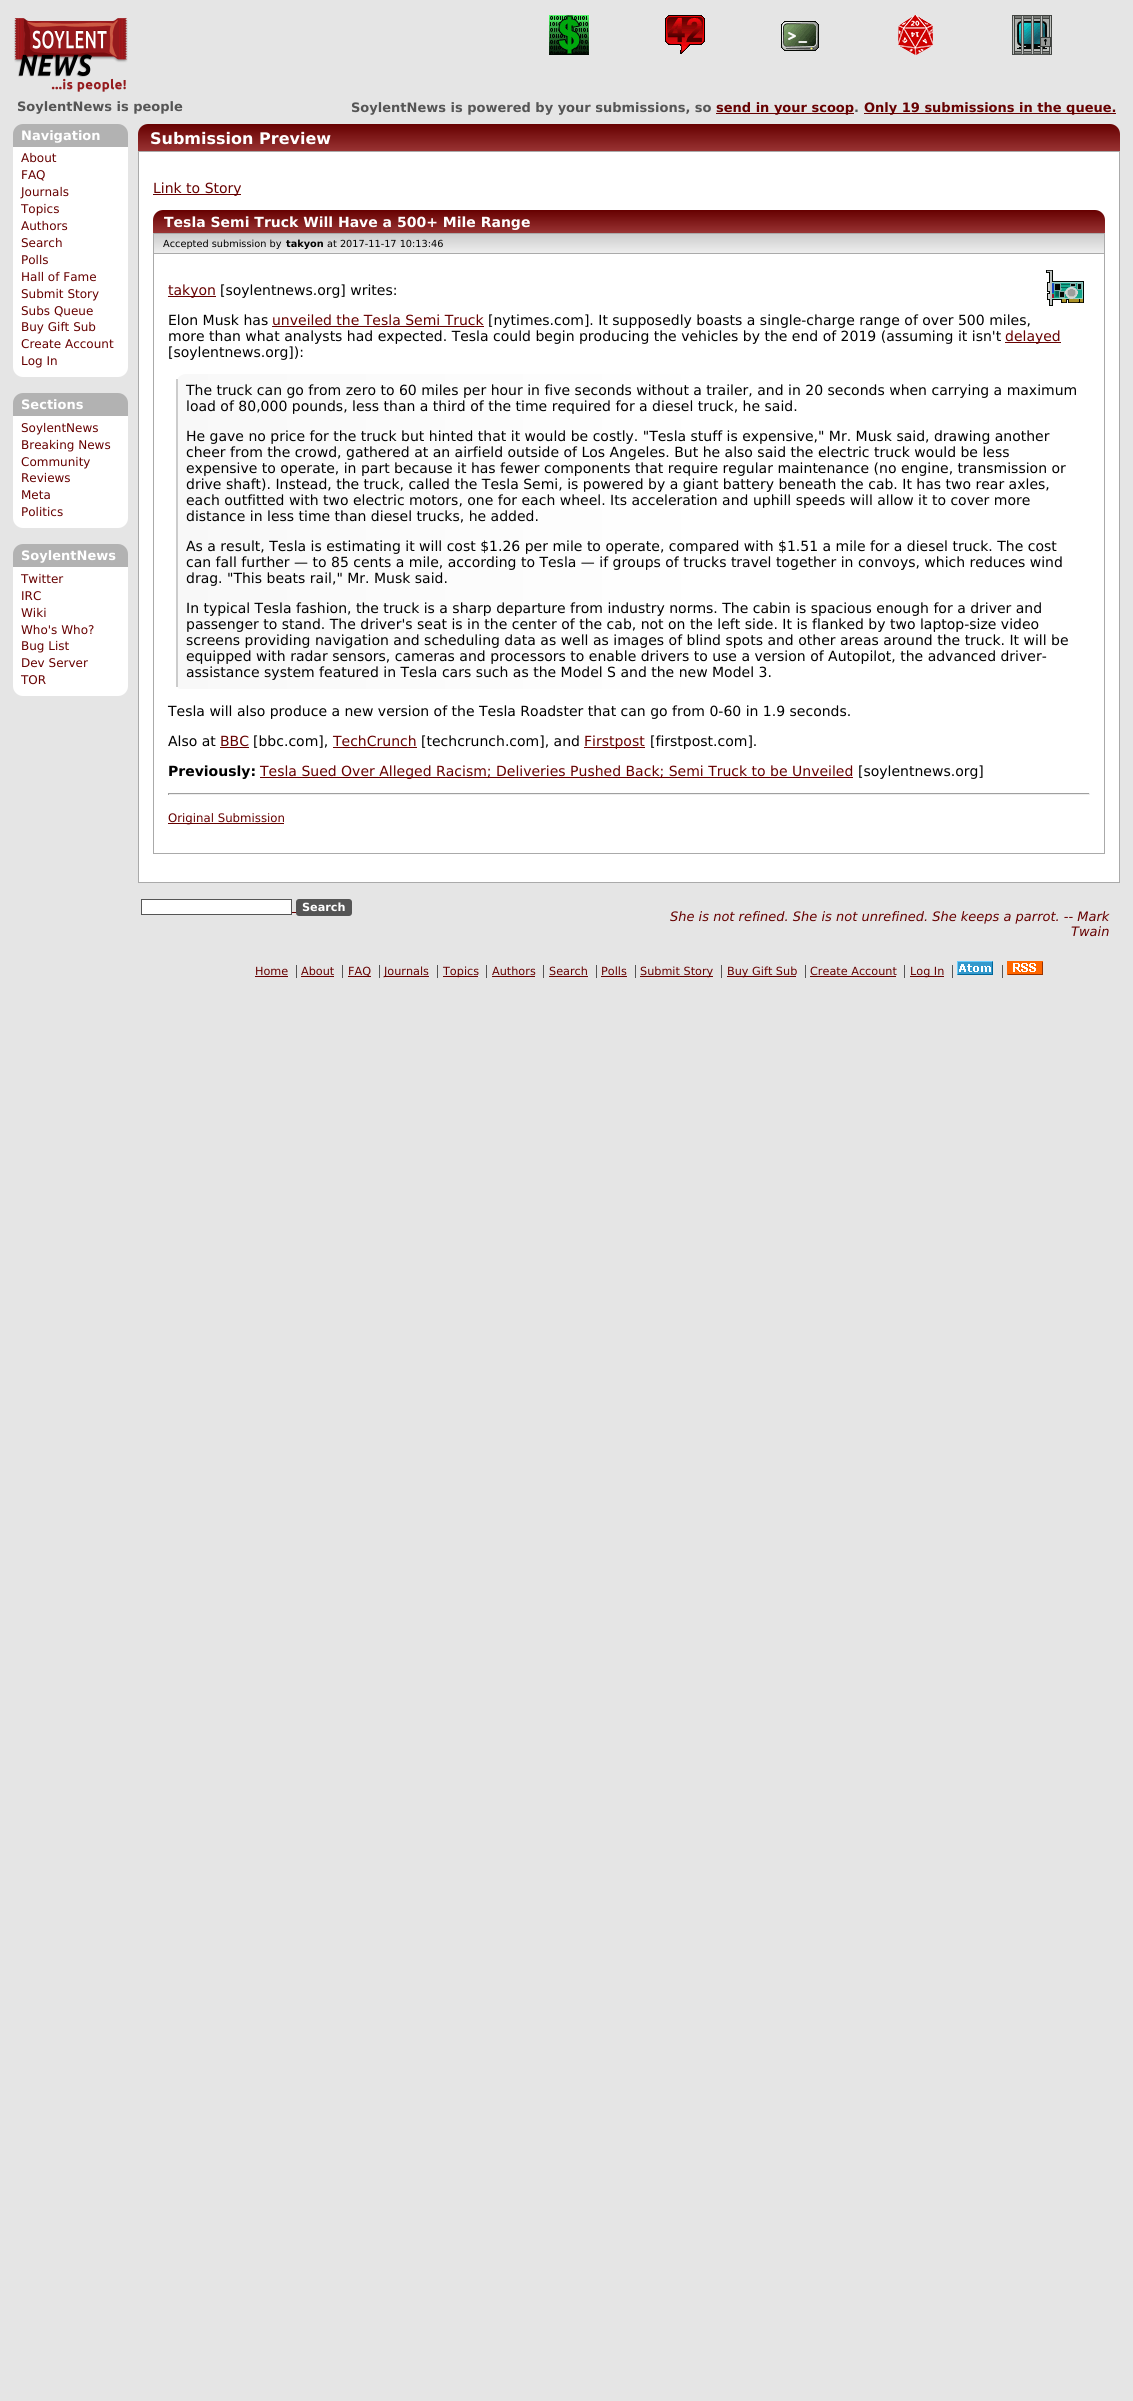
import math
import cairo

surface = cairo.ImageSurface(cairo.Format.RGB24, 1133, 2401)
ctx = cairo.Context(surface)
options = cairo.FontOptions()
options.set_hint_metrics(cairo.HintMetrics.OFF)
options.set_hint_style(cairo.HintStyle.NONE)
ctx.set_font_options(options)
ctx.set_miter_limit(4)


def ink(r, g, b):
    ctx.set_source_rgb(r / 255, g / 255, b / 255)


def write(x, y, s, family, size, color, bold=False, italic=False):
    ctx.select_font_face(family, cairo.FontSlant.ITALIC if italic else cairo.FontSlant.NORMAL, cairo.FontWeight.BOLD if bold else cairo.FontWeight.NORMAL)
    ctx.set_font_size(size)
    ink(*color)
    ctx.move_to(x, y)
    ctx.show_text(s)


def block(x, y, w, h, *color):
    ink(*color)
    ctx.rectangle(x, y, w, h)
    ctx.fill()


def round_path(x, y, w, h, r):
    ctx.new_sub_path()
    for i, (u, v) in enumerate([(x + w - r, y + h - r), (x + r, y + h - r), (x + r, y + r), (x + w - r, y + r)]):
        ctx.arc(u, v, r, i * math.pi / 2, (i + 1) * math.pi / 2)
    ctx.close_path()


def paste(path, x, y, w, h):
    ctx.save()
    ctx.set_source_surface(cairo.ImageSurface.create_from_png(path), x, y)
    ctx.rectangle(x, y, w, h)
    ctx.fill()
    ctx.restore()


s1 = dict(family="DejaVu Sans", size=13, color=(85, 85, 85), bold=True)
s2 = dict(family="DejaVu Sans", size=13, color=(102, 0, 0), bold=True)
s3 = dict(family="DejaVu Sans", size=13, color=(255, 255, 255), bold=True)
s4 = dict(family="DejaVu Sans", size=12, color=(102, 0, 0))
s5 = dict(family="DejaVu Sans", size=16, color=(255, 255, 255), bold=True)
s6 = dict(family="DejaVu Sans", size=14, color=(102, 0, 0))
s7 = dict(family="DejaVu Sans", size=14, color=(255, 255, 255), bold=True)
s8 = dict(family="DejaVu Sans", size=9.75, color=(0, 0, 0))
s9 = dict(family="DejaVu Sans", size=9.75, color=(0, 0, 0), bold=True)
s10 = dict(family="DejaVu Sans", size=14, color=(0, 0, 0))
s11 = dict(family="DejaVu Sans", size=14, color=(0, 0, 0), bold=True)
s12 = dict(family="DejaVu Sans", size=11.75, color=(102, 0, 0))
s13 = dict(family="DejaVu Sans", size=11.25, color=(255, 255, 255), bold=True)
s14 = dict(family="DejaVu Sans", size=13, color=(102, 0, 0), italic=True)
s15 = dict(family="DejaVu Sans", size=11.25, color=(102, 0, 0))

ink(229, 229, 229)
ctx.paint()
paste("pic1.png", 14, 18, 114, 74)
paste("pic2.png", 549, 15, 40, 40)
paste("pic3.png", 665, 15, 40, 39)
paste("pic4.png", 781, 21, 38, 30)
paste("pic5.png", 898, 15, 35, 40)
paste("pic6.png", 1012, 15, 40, 40)
write(17, 111, "SoylentNews is people", **s1)
write(351, 112, "SoylentNews is powered by your submissions, so", **s1)
block(716, 113, 138, 1, 102, 0, 0)
write(716, 112, "send in your scoop", **s2)
write(854, 112, ".", **s1)
block(864, 113, 252, 1, 102, 0, 0)
write(864, 112, "Only 19 submissions in the queue.", **s2)
ink(178, 178, 178)
ctx.new_path()
ctx.move_to(23, 124)
ctx.line_to(118, 124)
ctx.curve_to(123.5, 124, 128, 128.5, 128, 134)
ctx.line_to(128, 147)
ctx.line_to(13, 147)
ctx.line_to(13, 134)
ctx.curve_to(13, 128.5, 17.5, 124, 23, 124)
ctx.close_path()
ctx.fill()
write(21, 140, "Navigation", **s3)
ctx.new_path()
ctx.move_to(13, 147)
ctx.line_to(128, 147)
ctx.line_to(128, 367)
ctx.curve_to(128, 372.5, 123.5, 377, 118, 377)
ctx.line_to(23, 377)
ctx.curve_to(17.5, 377, 13, 372.5, 13, 367)
ctx.close_path()
ctx.fill()
write(21, 162, "About", **s4)
write(21, 179, "FAQ", **s4)
write(21, 196, "Journals", **s4)
write(21, 213, "Topics", **s4)
write(21, 230, "Authors", **s4)
write(21, 247, "Search", **s4)
write(21, 264, "Polls", **s4)
write(21, 281, "Hall of Fame", **s4)
write(21, 298, "Submit Story", **s4)
write(21, 315, "Subs Queue", **s4)
write(21, 331, "Buy Gift Sub", **s4)
write(21, 348, "Create Account", **s4)
write(21, 365, "Log In", **s4)
ink(178, 178, 178)
ctx.new_path()
ctx.move_to(23, 393)
ctx.line_to(118, 393)
ctx.curve_to(123.5, 393, 128, 397.5, 128, 403)
ctx.line_to(128, 416)
ctx.line_to(13, 416)
ctx.line_to(13, 403)
ctx.curve_to(13, 397.5, 17.5, 393, 23, 393)
ctx.close_path()
ctx.fill()
write(21, 409, "Sections", **s3)
ctx.new_path()
ctx.move_to(13, 416)
ctx.line_to(128, 416)
ctx.line_to(128, 518)
ctx.curve_to(128, 523.5, 123.5, 528, 118, 528)
ctx.line_to(23, 528)
ctx.curve_to(17.5, 528, 13, 523.5, 13, 518)
ctx.close_path()
ctx.fill()
write(21, 432, "SoylentNews", **s4)
write(21, 449, "Breaking News", **s4)
write(21, 466, "Community", **s4)
write(21, 482, "Reviews", **s4)
write(21, 499, "Meta", **s4)
write(21, 516, "Politics", **s4)
ink(178, 178, 178)
ctx.new_path()
ctx.move_to(23, 544)
ctx.line_to(118, 544)
ctx.curve_to(123.5, 544, 128, 548.5, 128, 554)
ctx.line_to(128, 567)
ctx.line_to(13, 567)
ctx.line_to(13, 554)
ctx.curve_to(13, 548.5, 17.5, 544, 23, 544)
ctx.close_path()
ctx.fill()
write(21, 560, "SoylentNews", **s3)
ctx.new_path()
ctx.move_to(13, 567)
ctx.line_to(128, 567)
ctx.line_to(128, 686)
ctx.curve_to(128, 691.5, 123.5, 696, 118, 696)
ctx.line_to(23, 696)
ctx.curve_to(17.5, 696, 13, 691.5, 13, 686)
ctx.close_path()
ctx.fill()
write(21, 583, "Twitter", **s4)
write(21, 600, "IRC", **s4)
write(21, 617, "Wiki", **s4)
write(21, 634, "Who's Who?", **s4)
write(21, 650, "Bug List", **s4)
write(21, 667, "Dev Server", **s4)
write(21, 684, "TOR", **s4)
gradient = cairo.LinearGradient(629, 124, 629, 151)
gradient.add_color_stop_rgba(0, 0.4, 0, 0, 1)
gradient.add_color_stop_rgba(1, 0.6, 0.2, 0.2, 1)
ctx.set_source(gradient)
ctx.new_path()
ctx.move_to(148, 124)
ctx.line_to(1110, 124)
ctx.curve_to(1115.5, 124, 1120, 128.5, 1120, 134)
ctx.line_to(1120, 151)
ctx.line_to(138, 151)
ctx.line_to(138, 134)
ctx.curve_to(138, 128.5, 142.5, 124, 148, 124)
ctx.close_path()
ctx.fill()
write(150, 144, "Submission Preview", **s5)
ctx.rectangle(138.5, 151.5, 981, 731)
ctx.fill_preserve()
ink(170, 170, 170)
ctx.set_line_width(1)
ctx.stroke()
block(153, 194, 88, 1, 102, 0, 0)
write(153, 193, "Link to Story", **s6)
gradient = cairo.LinearGradient(629, 210, 629, 233)
gradient.add_color_stop_rgba(0, 0.4, 0, 0, 1)
gradient.add_color_stop_rgba(1, 0.6, 0.2, 0.2, 1)
ctx.set_source(gradient)
ctx.new_path()
ctx.move_to(163, 210)
ctx.line_to(1095, 210)
ctx.curve_to(1100.5, 210, 1105, 214.5, 1105, 220)
ctx.line_to(1105, 233)
ctx.line_to(153, 233)
ctx.line_to(153, 220)
ctx.curve_to(153, 214.5, 157.5, 210, 163, 210)
ctx.close_path()
ctx.fill()
write(164, 227, "Tesla Semi Truck Will Have a 500+ Mile Range", **s7)
gradient = cairo.LinearGradient(629, 234, 629, 253)
gradient.add_color_stop_rgba(0, 0.8, 0.8, 0.8, 1)
gradient.add_color_stop_rgba(1, 0.933, 0.933, 0.933, 1)
ctx.set_source(gradient)
ctx.rectangle(154, 234, 950, 19)
ctx.fill()
ctx.rectangle(153.5, 233.5, 951, 20)
ink(170, 170, 170)
ctx.stroke()
write(163, 247, "Accepted submission by", **s8)
write(286, 247, "takyon", **s9)
write(327, 247, "at 2017-11-17 10:13:46", **s8)
block(1104, 254, 1, 600, 170, 170, 170)
block(153, 853, 952, 1, 170, 170, 170)
block(153, 254, 1, 600, 170, 170, 170)
block(168, 296, 48, 1, 102, 0, 0)
write(168, 295, "takyon", **s6)
write(220, 295, "[soylentnews.org] writes:", **s10)
paste("pic7.png", 1046, 270, 38, 36)
write(168, 325, "Elon Musk has", **s10)
write(272, 325, "unveiled the Tesla Semi Truck", **s6)
block(272, 326, 212, 1, 102, 0, 0)
write(488, 325, "[nytimes.com]. It supposedly boasts a single-charge range of over 500 miles,", **s10)
write(168, 341, "more than what analysts had expected. Tesla could begin producing the vehicles by the end of 2019 (assuming it isn't", **s10)
block(1005, 342, 56, 1, 102, 0, 0)
write(1005, 341, "delayed", **s6)
write(168, 357, "[soylentnews.org]):", **s10)
ctx.save()
ctx.new_path()
ctx.move_to(186, 374)
ctx.line_to(1082, 374)
ctx.line_to(1082, 689)
ctx.line_to(181, 689)
ctx.curve_to(178, 689, 176, 687, 176, 684)
ctx.line_to(176, 384)
ctx.curve_to(176, 378.5, 180.5, 374, 186, 374)
ctx.close_path()
ctx.clip()
gradient = cairo.LinearGradient(178, 532, 1082, 532)
gradient.add_color_stop_rgba(0, 0.973, 0.973, 0.973, 1)
gradient.add_color_stop_rgba(0.6, 1, 1, 1, 1)
ctx.set_source(gradient)
ctx.rectangle(178, 374, 904, 315)
ctx.fill()
ctx.restore()
block(176, 379, 2, 308, 204, 204, 204)
write(186, 395, "The truck can go from zero to 60 miles per hour in five seconds without a trailer, and in 20 seconds when carrying a maximum", **s10)
write(186, 411, "load of 80,000 pounds, less than a third of the time required for a diesel truck, he said.", **s10)
write(186, 441, "He gave no price for the truck but hinted that it would be costly. \"Tesla stuff is expensive,\" Mr. Musk said, drawing another", **s10)
write(186, 457, "cheer from the crowd, gathered at an airfield outside of Los Angeles. But he also said the electric truck would be less", **s10)
write(186, 473, "expensive to operate, in part because it has fewer components that require regular maintenance (no engine, transmission or", **s10)
write(186, 489, "drive shaft). Instead, the truck, called the Tesla Semi, is powered by a giant battery beneath the cab. It has two rear axles,", **s10)
write(186, 505, "each outfitted with two electric motors, one for each wheel. Its acceleration and uphill speeds will allow it to cover more", **s10)
write(186, 521, "distance in less time than diesel trucks, he added.", **s10)
write(186, 551, "As a result, Tesla is estimating it will cost $1.26 per mile to operate, compared with $1.51 a mile for a diesel truck. The cost", **s10)
write(186, 567, "can fall further — to 85 cents a mile, according to Tesla — if groups of trucks travel together in convoys, which reduces wind", **s10)
write(186, 583, "drag. \"This beats rail,\" Mr. Musk said.", **s10)
write(186, 613, "In typical Tesla fashion, the truck is a sharp departure from industry norms. The cabin is spacious enough for a driver and", **s10)
write(186, 629, "passenger to stand. The driver's seat is in the center of the cab, not on the left side. It is flanked by two laptop-size video", **s10)
write(186, 645, "screens providing navigation and scheduling data as well as images of blind spots and other areas around the truck. It will be", **s10)
write(186, 661, "equipped with radar sensors, cameras and processors to enable drivers to use a version of Autopilot, the advanced driver-", **s10)
write(186, 677, "assistance system featured in Tesla cars such as the Model S and the new Model 3.", **s10)
write(168, 716, "Tesla will also produce a new version of the Tesla Roadster that can go from 0-60 in 1.9 seconds.", **s10)
write(168, 746, "Also at", **s10)
write(220, 746, "BBC", **s6)
block(220, 747, 29, 1, 102, 0, 0)
write(253, 746, "[bbc.com],", **s10)
write(333, 746, "TechCrunch", **s6)
block(333, 747, 84, 1, 102, 0, 0)
write(421, 746, "[techcrunch.com], and", **s10)
block(584, 747, 61, 1, 102, 0, 0)
write(584, 746, "Firstpost", **s6)
write(650, 746, "[firstpost.com].", **s10)
write(168, 776, "Previously:", **s11)
block(260, 777, 593, 1, 102, 0, 0)
write(260, 776, "Tesla Sued Over Alleged Racism; Deliveries Pushed Back; Semi Truck to be Unveiled", **s6)
write(858, 776, "[soylentnews.org]", **s10)
block(168, 793, 922, 1, 159, 159, 159)
block(1089, 793, 1, 2, 238, 238, 238)
block(168, 794, 922, 1, 238, 238, 238)
block(168, 793, 1, 2, 159, 159, 159)
block(168, 823, 116, 1, 102, 0, 0)
write(168, 822, "Original Submission", **s12)
ink(255, 255, 255)
ctx.rectangle(141.5, 899.5, 150, 15)
ctx.fill_preserve()
ink(85, 85, 85)
ctx.stroke()
round_path(296, 899, 56, 17, 3)
ctx.fill()
write(302, 911, "Search", **s13)
block(292, 912, 4, 1, 102, 0, 0)
write(670, 921, "She is not refined. She is not unrefined. She keeps a parrot. -- Mark", **s14)
write(1071, 936, "Twain", **s14)
write(255, 975, "Home", **s15)
block(255, 976, 33, 1, 102, 0, 0)
write(301, 975, "About", **s15)
block(296, 965, 1, 13, 85, 85, 85)
block(301, 976, 33, 1, 102, 0, 0)
block(348, 976, 23, 1, 102, 0, 0)
write(348, 975, "FAQ", **s15)
block(342, 965, 1, 13, 85, 85, 85)
block(384, 976, 45, 1, 102, 0, 0)
write(384, 975, "Journals", **s15)
block(379, 965, 1, 13, 85, 85, 85)
block(443, 976, 35, 1, 102, 0, 0)
write(443, 975, "Topics", **s15)
block(437, 965, 1, 13, 85, 85, 85)
write(492, 975, "Authors", **s15)
block(486, 965, 1, 13, 85, 85, 85)
block(492, 976, 43, 1, 102, 0, 0)
write(549, 975, "Search", **s15)
block(543, 965, 1, 13, 85, 85, 85)
block(549, 976, 39, 1, 102, 0, 0)
write(601, 975, "Polls", **s15)
block(596, 965, 1, 13, 85, 85, 85)
block(601, 976, 26, 1, 102, 0, 0)
block(640, 976, 73, 1, 102, 0, 0)
write(640, 975, "Submit Story", **s15)
block(635, 965, 1, 13, 85, 85, 85)
block(727, 976, 69, 1, 102, 0, 0)
write(727, 975, "Buy Gift Sub", **s15)
block(721, 965, 1, 13, 85, 85, 85)
write(810, 975, "Create Account", **s15)
block(805, 965, 1, 13, 85, 85, 85)
block(810, 976, 86, 1, 102, 0, 0)
block(910, 976, 34, 1, 102, 0, 0)
write(910, 975, "Log In", **s15)
block(904, 965, 1, 13, 85, 85, 85)
block(952, 965, 1, 13, 85, 85, 85)
paste("pic8.png", 957, 961, 36, 14)
block(1002, 965, 1, 13, 85, 85, 85)
paste("pic9.png", 1007, 961, 36, 14)
surface.write_to_png("screenshot.png")
